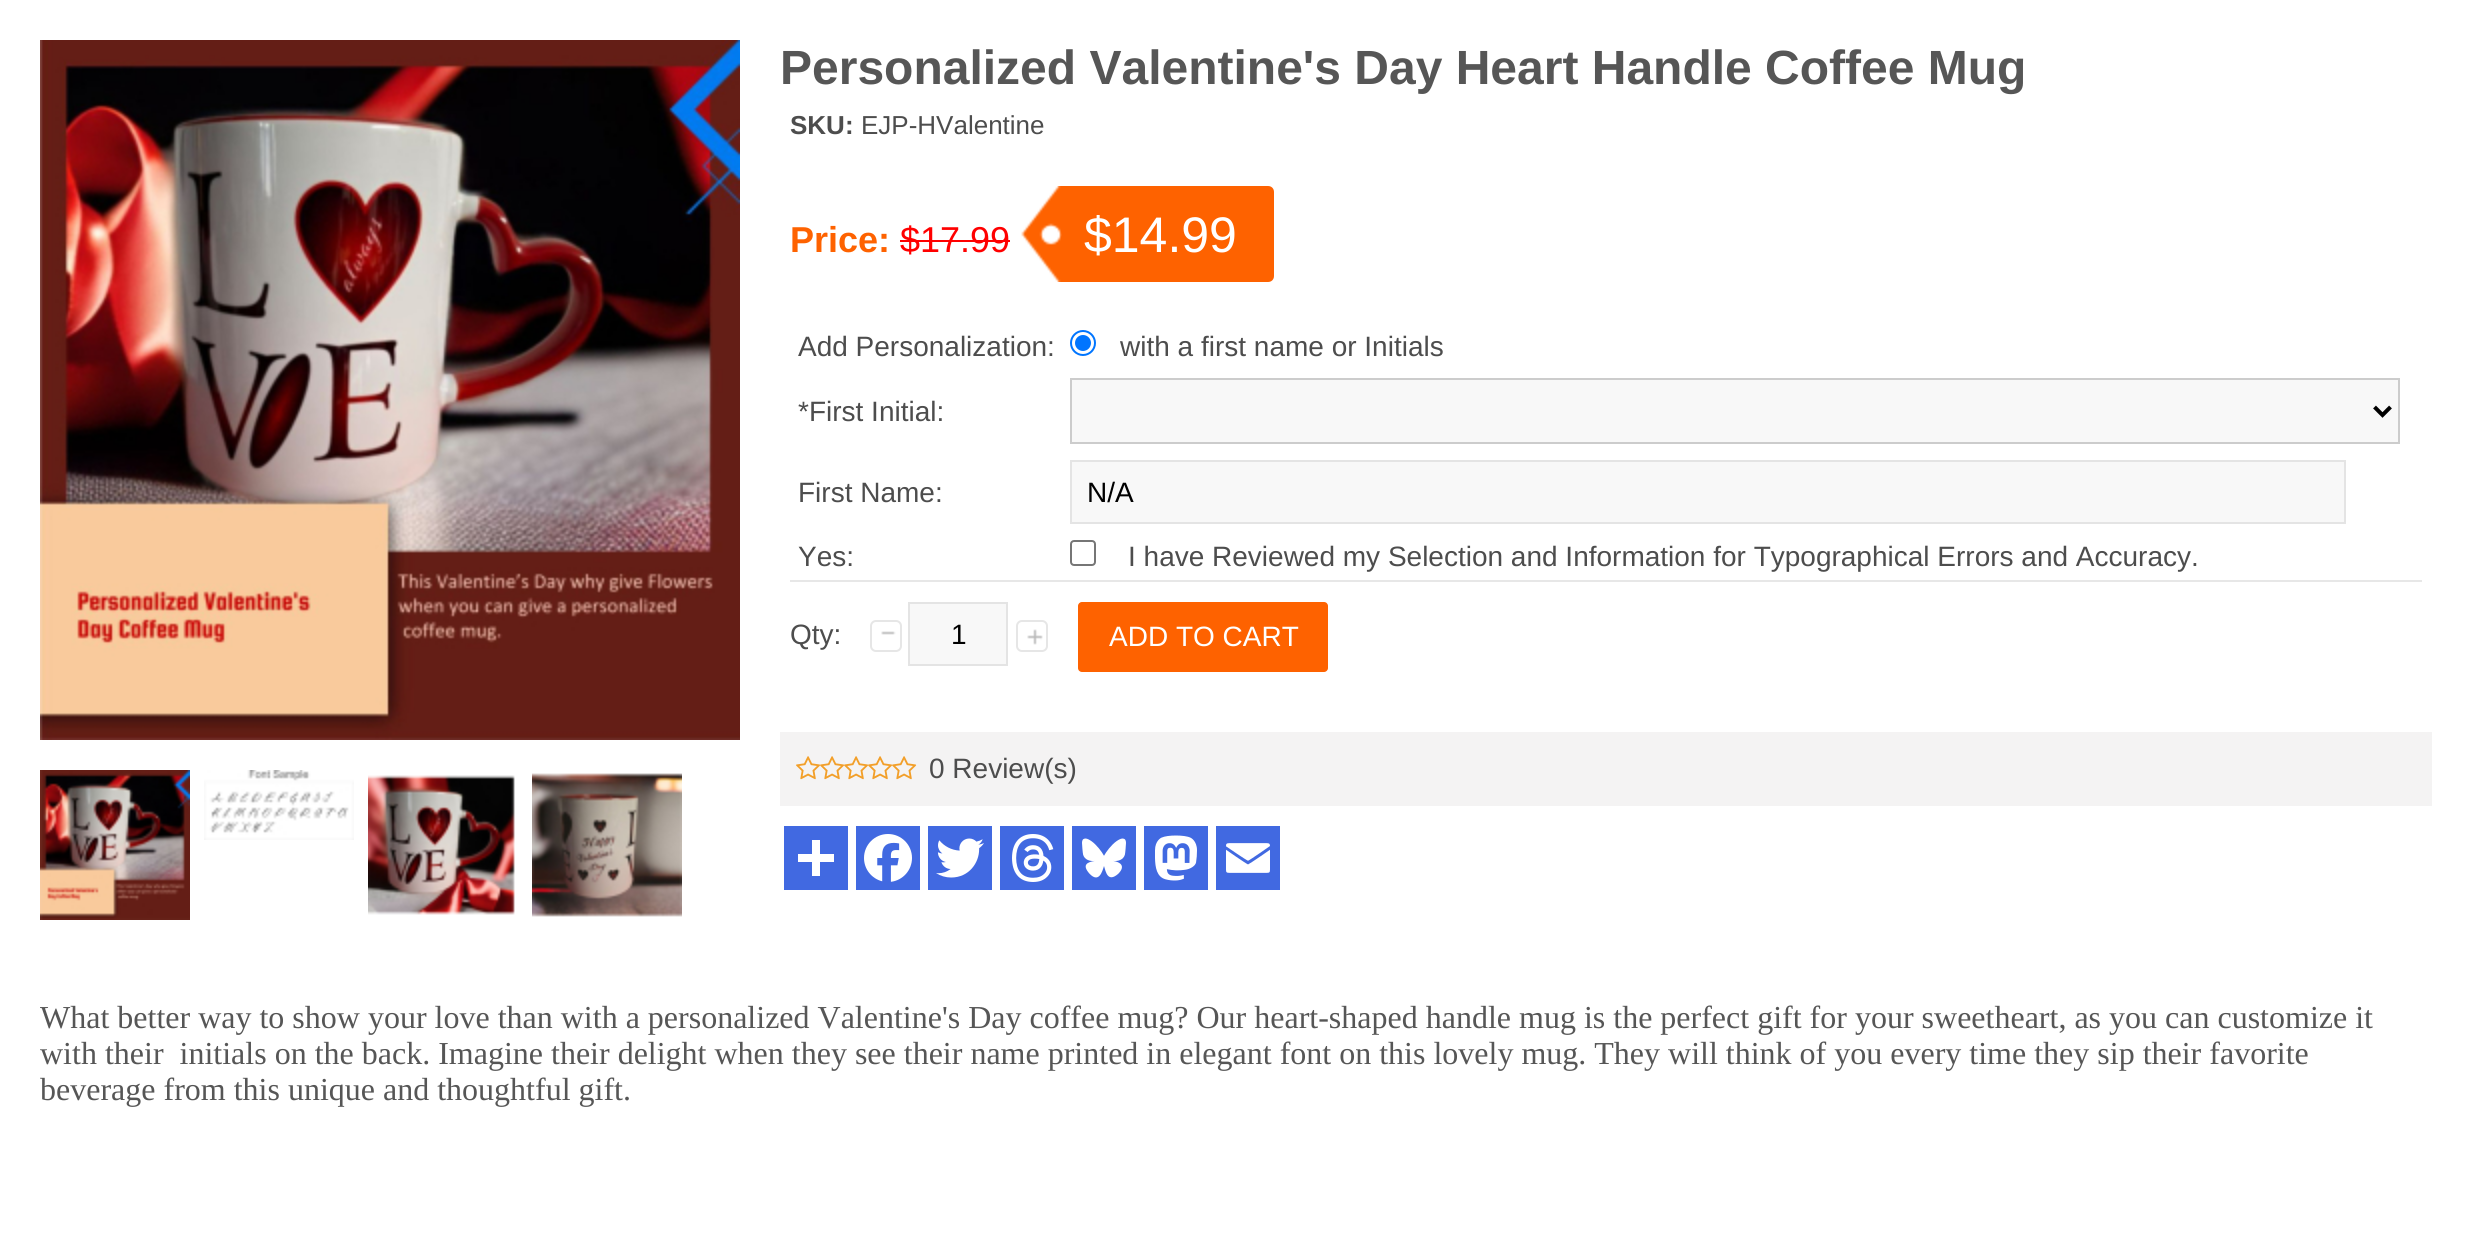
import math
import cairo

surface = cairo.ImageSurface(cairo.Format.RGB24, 2472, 1238)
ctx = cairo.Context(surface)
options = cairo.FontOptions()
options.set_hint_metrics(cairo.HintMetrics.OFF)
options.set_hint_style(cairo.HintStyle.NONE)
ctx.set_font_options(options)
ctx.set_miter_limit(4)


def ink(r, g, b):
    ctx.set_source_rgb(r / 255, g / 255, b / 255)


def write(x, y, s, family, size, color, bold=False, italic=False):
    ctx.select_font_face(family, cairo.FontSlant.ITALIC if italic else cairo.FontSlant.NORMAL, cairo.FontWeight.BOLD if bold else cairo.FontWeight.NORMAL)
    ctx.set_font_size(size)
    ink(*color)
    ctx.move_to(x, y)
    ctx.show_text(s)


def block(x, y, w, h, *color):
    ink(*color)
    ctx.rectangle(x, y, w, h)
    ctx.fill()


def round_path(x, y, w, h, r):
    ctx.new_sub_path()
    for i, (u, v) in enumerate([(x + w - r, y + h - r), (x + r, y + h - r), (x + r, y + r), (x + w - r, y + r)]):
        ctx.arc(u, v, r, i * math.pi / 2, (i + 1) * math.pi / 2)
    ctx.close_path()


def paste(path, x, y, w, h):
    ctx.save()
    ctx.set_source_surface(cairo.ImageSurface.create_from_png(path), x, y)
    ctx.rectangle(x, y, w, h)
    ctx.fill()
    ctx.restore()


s1 = dict(family="Liberation Sans", size=48, color=(86, 86, 86), bold=True)
s2 = dict(family="Liberation Sans", size=26, color=(77, 77, 77), bold=True)
s3 = dict(family="Liberation Sans", size=26, color=(77, 77, 77))
s4 = dict(family="Liberation Sans", size=36, color=(254, 98, 0), bold=True)
s5 = dict(family="Liberation Sans", size=36, color=(255, 0, 0))
s6 = dict(family="Liberation Sans", size=50, color=(255, 255, 255))
s7 = dict(family="Liberation Sans", size=28, color=(77, 77, 77))
s8 = dict(family="Liberation Sans", size=28, color=(0, 0, 0))
s9 = dict(family="Liberation Sans", size=28, color=(255, 255, 255))
s10 = dict(family="Liberation Serif", size=32, color=(86, 86, 86))

ink(255, 255, 255)
ctx.paint()
paste("pic1.png", 40, 40, 700, 700)
paste("pic2.png", 40, 770, 150, 150)
paste("pic3.png", 204, 770, 150, 70)
paste("pic4.png", 368, 775, 147, 140)
paste("pic5.png", 532, 773, 150, 144)
write(780, 84, "Personalized Valentine's Day Heart Handle Coffee Mug", **s1)
write(790, 134, "SKU:", **s2)
write(861, 134, "EJP-HValentine", **s3)
write(790, 252, "Price:", **s4)
write(900, 252, "$17.99", **s5)
block(900, 240, 110, 2, 255, 0, 0)
ink(254, 98, 0)
ctx.new_path()
ctx.move_to(1020, 186)
ctx.line_to(1268, 186)
ctx.curve_to(1271.5, 186, 1274, 188.5, 1274, 192)
ctx.line_to(1274, 276)
ctx.curve_to(1274, 279.5, 1271.5, 282, 1268, 282)
ctx.line_to(1020, 282)
ctx.close_path()
ctx.fill()
paste("pic6.png", 1020, 186, 42, 96)
write(1084, 252, "$14.99", **s6)
block(790, 580, 1632, 2, 231, 231, 231)
write(798, 356, "Add Personalization:", **s7)
ctx.new_path()
ctx.arc(1083, 343, 12, 0, 2 * math.pi)
ink(0, 117, 255)
ctx.stroke()
ctx.arc(1083, 343, 8, 0, 2 * math.pi)
ctx.fill()
write(1120, 356, "with a first name or Initials", **s7)
write(798, 421, "*First Initial:", **s7)
ink(248, 248, 248)
ctx.rectangle(1071, 379, 1328, 64)
ctx.fill_preserve()
ink(204, 204, 204)
ctx.stroke()
ctx.new_path()
ctx.move_to(2374.5, 407)
ctx.line_to(2382.5, 415)
ctx.line_to(2390.5, 407)
ink(0, 0, 0)
ctx.set_line_width(4)
ctx.stroke()
write(798, 502, "First Name:", **s7)
ink(248, 248, 248)
ctx.rectangle(1071, 461, 1274, 62)
ctx.fill_preserve()
ink(228, 228, 228)
ctx.set_line_width(2)
ctx.stroke()
write(1087, 502, "N/A", **s8)
write(798, 566, "Yes:", **s7)
round_path(1071, 541, 24, 24, 3)
ink(118, 118, 118)
ctx.stroke()
write(1128, 566, "I have Reviewed my Selection and Information for Typographical Errors and Accuracy.", **s7)
write(790, 644, "Qty:", **s7)
paste("pic7.png", 881, 631, 15, 4)
round_path(871, 621, 30, 30, 5)
ink(230, 230, 230)
ctx.stroke()
ink(248, 248, 248)
ctx.rectangle(909, 603, 98, 62)
ctx.fill_preserve()
ink(228, 228, 228)
ctx.stroke()
write(951, 644, "1", **s8)
paste("pic8.png", 1027, 629, 16, 16)
round_path(1017, 621, 30, 30, 5)
ink(230, 230, 230)
ctx.stroke()
ink(254, 98, 0)
round_path(1078, 602, 250, 70, 4)
ctx.fill()
write(1109, 646, "ADD TO CART", **s9)
block(780, 732, 1652, 74, 244, 243, 243)
paste("pic9.png", 796, 756, 25, 24)
paste("pic10.png", 820, 756, 25, 24)
paste("pic10.png", 844, 756, 25, 24)
paste("pic10.png", 868, 756, 25, 24)
paste("pic10.png", 892, 756, 25, 24)
write(929, 778, "0 Review(s)", **s7)
block(784, 826, 64, 64, 65, 105, 225)
block(812, 840, 8, 36, 255, 255, 255)
block(798, 854, 36, 8, 255, 255, 255)
block(856, 826, 64, 64, 65, 105, 225)
paste("pic11.png", 864, 834, 48, 48)
block(928, 826, 64, 64, 65, 105, 225)
paste("pic12.png", 936, 838, 48, 40)
block(1000, 826, 64, 64, 65, 105, 225)
paste("pic13.png", 1012, 834, 42, 48)
block(1072, 826, 64, 64, 65, 105, 225)
paste("pic14.png", 1082, 838, 44, 40)
block(1144, 826, 64, 64, 65, 105, 225)
paste("pic15.png", 1155, 835, 42, 46)
block(1216, 826, 64, 64, 65, 105, 225)
paste("pic16.png", 1226, 843, 44, 30)
write(40, 1028, "What better way to show your love than with a personalized Valentine's Day coffee mug? Our heart-shaped handle mug is the perfect gift for your sweetheart, as you can customize it", **s10)
write(40, 1064, "with their  initials on the back. Imagine their delight when they see their name printed in elegant font on this lovely mug. They will think of you every time they sip their favorite", **s10)
write(40, 1100, "beverage from this unique and thoughtful gift.", **s10)
surface.write_to_png("screenshot.png")
